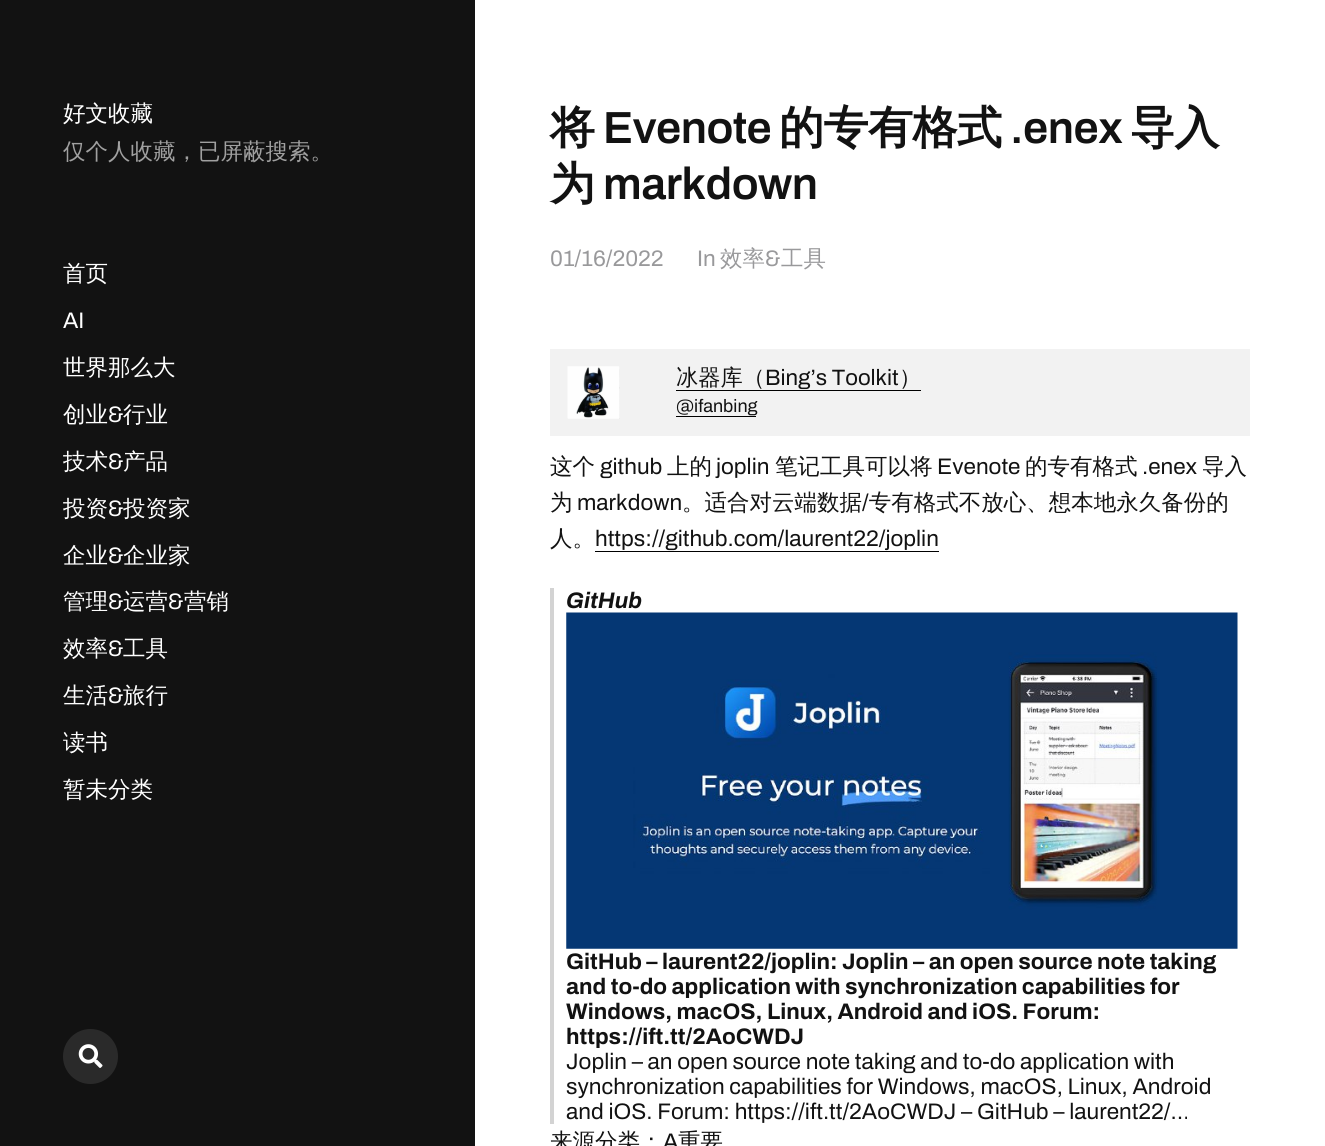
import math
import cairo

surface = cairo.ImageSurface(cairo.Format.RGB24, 1325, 1146)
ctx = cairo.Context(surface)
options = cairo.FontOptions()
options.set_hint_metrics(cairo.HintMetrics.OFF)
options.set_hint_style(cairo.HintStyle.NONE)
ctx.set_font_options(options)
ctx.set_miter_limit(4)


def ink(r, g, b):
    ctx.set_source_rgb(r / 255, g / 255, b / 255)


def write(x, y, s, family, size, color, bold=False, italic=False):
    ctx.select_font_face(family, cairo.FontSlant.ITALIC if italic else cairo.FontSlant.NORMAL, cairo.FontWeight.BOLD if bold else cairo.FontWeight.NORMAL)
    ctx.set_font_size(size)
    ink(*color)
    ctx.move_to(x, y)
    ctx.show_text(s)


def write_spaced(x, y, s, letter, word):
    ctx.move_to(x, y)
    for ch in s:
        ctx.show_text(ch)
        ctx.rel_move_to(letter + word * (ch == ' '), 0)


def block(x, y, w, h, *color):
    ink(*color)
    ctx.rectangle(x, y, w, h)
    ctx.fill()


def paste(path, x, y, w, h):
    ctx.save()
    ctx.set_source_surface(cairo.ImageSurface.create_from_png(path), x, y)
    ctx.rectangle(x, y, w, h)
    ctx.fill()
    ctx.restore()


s1 = dict(family="WenQuanYi Zen Hei Medium", size=22.5, color=(255, 255, 255))
s2 = dict(family="WenQuanYi Zen Hei Medium", size=22.5, color=(160, 160, 160))
s3 = dict(family="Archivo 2 SemiBold", size=22.5, color=(255, 255, 255))
s4 = dict(family="Archivo 2 SemiBold", size=22.5, color=(153, 153, 155))
s5 = dict(family="WenQuanYi Zen Hei Medium", size=22.5, color=(153, 153, 155))
s6 = dict(family="WenQuanYi Zen Hei Medium", size=22.25, color=(18, 18, 18))
s7 = dict(family="Archivo 2 SemiBold", size=22.25, color=(18, 18, 18))
s8 = dict(family="Archivo 2 SemiBold", size=18, color=(18, 18, 18))
s9 = dict(family="WenQuanYi Zen Hei Medium", size=22.5, color=(18, 18, 18))
s10 = dict(family="Archivo 2 SemiBold", size=22.5, color=(18, 18, 18))
s11 = dict(family="Archivo SemiBold", size=22.5, color=(18, 18, 18), italic=True)
s12 = dict(family="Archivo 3 SemiBold", size=22.5, color=(18, 18, 18))

ink(255, 255, 255)
ctx.paint()
block(0, 0, 475, 1146, 18, 18, 18)
write(63, 121, "好文收藏", **s1)
write(63, 159, "仅个人收藏，已屏蔽搜索。", **s2)
write(63, 281, "首页", **s1)
write(63, 328, "AI", **s3)
write(63, 375, "世界那么大", **s1)
write(63, 422, "创业", **s1)
write(108, 422, "&", **s3)
write(123, 422, "行业", **s1)
ctx.save()
ctx.rectangle(63, 241, 350, 687)
ctx.clip()
write(63, 469, "技术", **s1)
ctx.restore()
write(108, 469, "&", **s3)
write(123, 469, "产品", **s1)
ctx.save()
ctx.rectangle(63, 241, 350, 687)
ctx.clip()
write(63, 516, "投资", **s1)
ctx.restore()
write(108, 516, "&", **s3)
write(123, 516, "投资家", **s1)
write(63, 563, "企业", **s1)
write(108, 563, "&", **s3)
write(123, 563, "企业家", **s1)
write(63, 609, "管理", **s1)
write(108, 609, "&", **s3)
write(123, 609, "运营", **s1)
write(168, 609, "&", **s3)
write(184, 609, "营销", **s1)
write(63, 656, "效率", **s1)
write(108, 656, "&", **s3)
write(123, 656, "工具", **s1)
write(63, 703, "生活", **s1)
write(108, 703, "&", **s3)
write(123, 703, "旅行", **s1)
write(63, 750, "读书", **s1)
write(63, 797, "暂未分类", **s1)
ink(42, 42, 42)
ctx.new_path()
ctx.arc(90.5, 1056.5, 27.5, 0, 2 * math.pi)
ctx.fill()
paste("pic1.png", 78, 1044, 25, 24)
ctx.select_font_face("WenQuanYi Zen Hei", cairo.FontSlant.NORMAL, cairo.FontWeight.BOLD)
ctx.set_font_size(45)
ink(18, 18, 18)
write_spaced(550, 143, "将", -0.5, 0)
ctx.select_font_face("Archivo SemiBold")
write_spaced(603, 143, "Evenote", -0.5, 0)
ctx.select_font_face("WenQuanYi Zen Hei", cairo.FontSlant.NORMAL, cairo.FontWeight.BOLD)
write_spaced(779, 143, "的专有格式", -0.5, 0)
ctx.select_font_face("Archivo SemiBold")
write_spaced(1010, 143, ".enex", -0.5, 0)
ctx.select_font_face("WenQuanYi Zen Hei", cairo.FontSlant.NORMAL, cairo.FontWeight.BOLD)
write_spaced(1130, 143, "导入", -0.5, 0)
write_spaced(550, 199, "为", -0.5, 0)
ctx.select_font_face("Archivo SemiBold")
write_spaced(603, 199, "markdown", -0.5, 0)
write(550, 266, "01/16/2022", **s4)
write(697, 266, "In", **s4)
write(720, 266, "效率", **s5)
write(765, 266, "&", **s4)
write(781, 266, "工具", **s5)
block(550, 349, 700, 87, 242, 242, 242)
paste("pic2.png", 567, 366, 53, 53)
write(676, 385, "冰器库（", **s6)
write(765, 385, "Bing’s Toolkit", **s7)
block(676, 390, 245, 1, 0, 0, 0)
write(899, 385, "）", **s6)
write(676, 412, "@ifanbing", **s8)
block(676, 416, 80, 1, 0, 0, 0)
write(550, 474, "这个", **s9)
write(600, 474, "github", **s10)
write(667, 474, "上的", **s9)
write(716, 474, "joplin", **s10)
write(775, 474, "笔记工具可以将", **s9)
write(937, 474, "Evenote", **s10)
write(1025, 474, "的专有格式", **s9)
write(1142, 474, ".enex", **s10)
write(1202, 474, "导入", **s9)
write(550, 510, "为", **s9)
write(577, 510, "markdown", **s10)
write(682, 510, "。适合对云端数据 专有格式不放心、想本地永久备份的", **s9)
write(862, 510, "/", **s10)
write(550, 546, "人。", **s9)
write(595, 546, "https://github.com/laurent22/joplin", **s10)
block(595, 551, 344, 1, 0, 0, 0)
block(550, 588, 4, 536, 211, 211, 211)
write(566, 608, "GitHub", **s11)
paste("pic3.png", 566, 612, 672, 337)
write(566, 969, "GitHub – laurent22/joplin: Joplin – an open source note taking", **s12)
write(566, 994, "and to-do application with synchronization capabilities for", **s12)
write(566, 1019, "Windows, macOS, Linux, Android and iOS. Forum:", **s12)
write(566, 1044, "https://ift.tt/2AoCWDJ", **s12)
write(566, 1069, "Joplin – an open source note taking and to-do application with", **s10)
write(566, 1094, "synchronization capabilities for Windows, macOS, Linux, Android", **s10)
write(566, 1119, "and iOS. Forum: https://ift.tt/2AoCWDJ – GitHub – laurent22/…", **s10)
write(550, 1149, "来源分类：", **s9)
write(663, 1149, "A", **s10)
write(678, 1149, "重要", **s9)
surface.write_to_png("screenshot.png")
